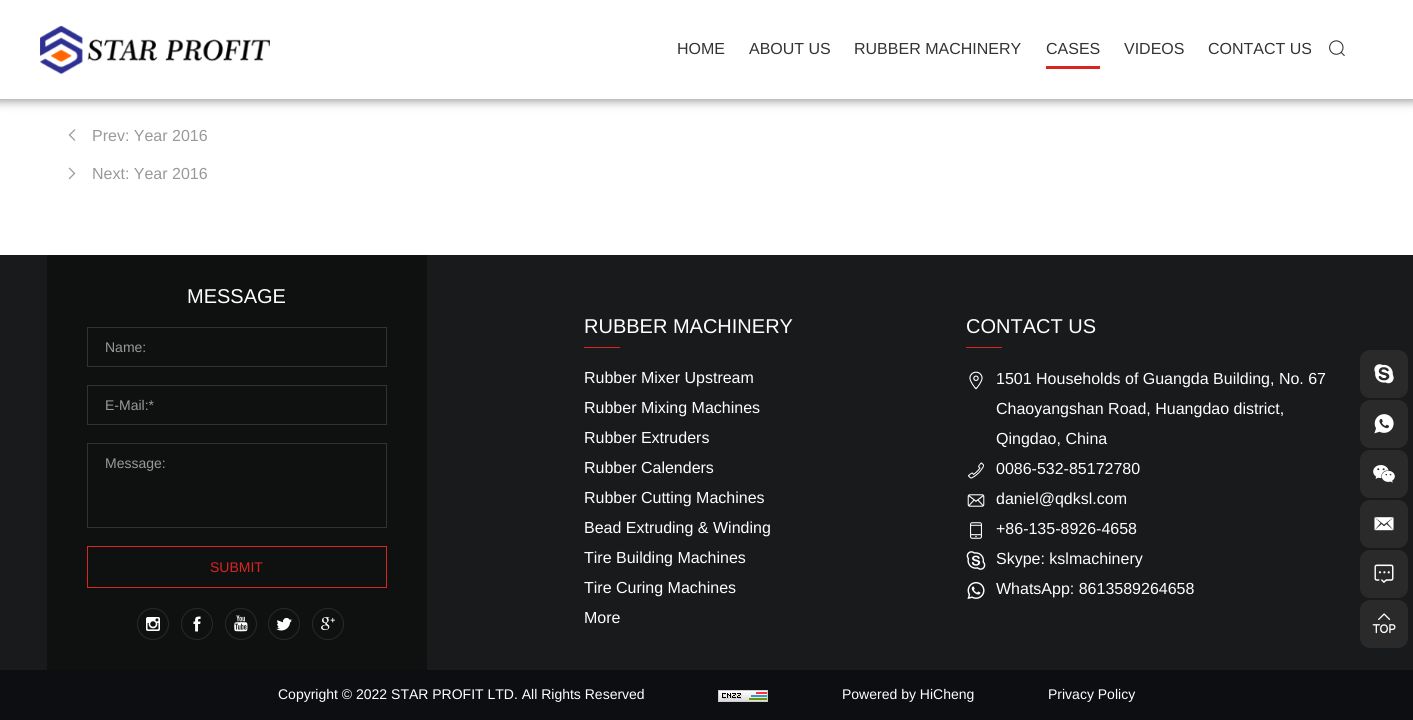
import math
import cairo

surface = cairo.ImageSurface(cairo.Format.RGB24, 1413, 720)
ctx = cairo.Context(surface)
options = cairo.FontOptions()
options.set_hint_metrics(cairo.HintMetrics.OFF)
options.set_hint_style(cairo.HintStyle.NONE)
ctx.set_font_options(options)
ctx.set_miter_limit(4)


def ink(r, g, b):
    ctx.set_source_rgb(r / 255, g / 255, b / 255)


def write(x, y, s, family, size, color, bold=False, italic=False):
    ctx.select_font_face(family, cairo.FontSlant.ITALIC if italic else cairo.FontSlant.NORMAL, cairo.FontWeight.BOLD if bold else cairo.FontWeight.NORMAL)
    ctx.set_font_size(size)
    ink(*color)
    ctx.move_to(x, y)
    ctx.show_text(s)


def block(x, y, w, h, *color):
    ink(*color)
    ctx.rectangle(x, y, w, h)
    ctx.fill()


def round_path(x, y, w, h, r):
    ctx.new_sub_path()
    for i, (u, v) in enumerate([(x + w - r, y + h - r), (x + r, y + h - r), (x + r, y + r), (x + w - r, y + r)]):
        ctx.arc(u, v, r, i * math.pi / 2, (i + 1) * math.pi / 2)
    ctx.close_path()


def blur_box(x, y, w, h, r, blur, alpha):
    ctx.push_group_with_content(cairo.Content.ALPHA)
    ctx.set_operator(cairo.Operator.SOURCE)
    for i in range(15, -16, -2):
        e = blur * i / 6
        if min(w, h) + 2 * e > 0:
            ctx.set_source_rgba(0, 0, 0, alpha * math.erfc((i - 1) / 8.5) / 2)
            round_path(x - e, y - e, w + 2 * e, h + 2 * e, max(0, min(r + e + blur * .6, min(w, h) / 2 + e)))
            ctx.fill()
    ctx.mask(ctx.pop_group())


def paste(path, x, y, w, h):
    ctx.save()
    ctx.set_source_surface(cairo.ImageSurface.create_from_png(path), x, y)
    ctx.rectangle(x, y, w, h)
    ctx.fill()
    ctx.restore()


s1 = dict(family="Liberation Sans", size=16, color=(51, 51, 51))
s2 = dict(family="Liberation Sans", size=16, color=(153, 153, 153))
s3 = dict(family="Liberation Sans", size=20, color=(255, 255, 255))
s4 = dict(family="Liberation Sans", size=14, color=(153, 153, 153))
s5 = dict(family="Liberation Sans", size=14, color=(217, 36, 32))
s6 = dict(family="Liberation Sans", size=16, color=(255, 255, 255))
s7 = dict(family="Liberation Sans", size=14, color=(255, 255, 255))

ink(255, 255, 255)
ctx.paint()
ink(0, 0, 0)
blur_box(-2, -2, 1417, 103, 0, 5, 0.4)
block(0, 0, 1413, 99, 255, 255, 255)
paste("pic1.png", 40, 25, 230, 50)
write(677, 54, "HOME", **s1)
write(749, 54, "ABOUT US", **s1)
write(854, 54, "RUBBER MACHINERY", **s1)
write(1046, 54, "CASES", **s1)
block(1046, 66, 54, 3, 217, 36, 32)
write(1124, 54, "VIDEOS", **s1)
write(1208, 54, "CONTACT US", **s1)
paste("pic2.png", 1329, 40, 16, 17)
paste("pic3.png", 68, 129, 8, 12)
write(92, 141, "Prev: Year 2016", **s2)
paste("pic4.png", 68, 167, 8, 13)
write(92, 179, "Next: Year 2016", **s2)
block(0, 255, 1413, 415, 24, 26, 27)
block(47, 255, 380, 415, 15, 17, 17)
write(187, 303, "MESSAGE", **s3)
ctx.rectangle(87.5, 327.5, 299, 39)
ink(49, 50, 50)
ctx.set_line_width(1)
ctx.stroke()
write(105, 352, "Name:", **s4)
ctx.rectangle(87.5, 385.5, 299, 39)
ink(49, 50, 50)
ctx.stroke()
write(105, 410, "E-Mail:*", **s4)
ctx.rectangle(87.5, 443.5, 299, 84)
ink(49, 50, 50)
ctx.stroke()
write(105, 468, "Message:", **s4)
ctx.rectangle(87.5, 546.5, 299, 41)
ink(217, 36, 32)
ctx.stroke()
write(210, 572, "SUBMIT", **s5)
ctx.new_path()
ctx.arc(153, 624, 15.5, 0, 2 * math.pi)
ink(39, 41, 41)
ctx.stroke()
paste("pic5.png", 146, 617, 14, 14)
ctx.arc(197, 624, 15.5, 0, 2 * math.pi)
ctx.stroke()
paste("pic6.png", 193, 616, 8, 16)
ctx.arc(241, 624, 15.5, 0, 2 * math.pi)
ctx.stroke()
paste("pic7.png", 234, 615, 14, 17)
ctx.arc(284, 624, 15.5, 0, 2 * math.pi)
ctx.stroke()
paste("pic8.png", 276, 617, 16, 14)
ctx.arc(328, 624, 15.5, 0, 2 * math.pi)
ctx.stroke()
paste("pic9.png", 321, 617, 14, 14)
write(584, 333, "RUBBER MACHINERY", **s3)
block(584, 347, 36, 1, 217, 36, 32)
write(584, 383, "Rubber Mixer Upstream", **s6)
write(584, 413, "Rubber Mixing Machines", **s6)
write(584, 443, "Rubber Extruders", **s6)
write(584, 473, "Rubber Calenders", **s6)
write(584, 503, "Rubber Cutting Machines", **s6)
write(584, 533, "Bead Extruding & Winding", **s6)
write(584, 563, "Tire Building Machines", **s6)
write(584, 593, "Tire Curing Machines", **s6)
write(584, 623, "More", **s6)
write(966, 333, "CONTACT US", **s3)
block(966, 347, 36, 1, 217, 36, 32)
paste("pic10.png", 969, 371, 14, 19)
write(996, 384, "1501 Households of Guangda Building, No. 67", **s6)
write(996, 414, "Chaoyangshan Road, Huangdao district,", **s6)
write(996, 444, "Qingdao, China", **s6)
paste("pic11.png", 968, 462, 16, 17)
write(996, 474, "0086-532-85172780", **s6)
paste("pic12.png", 967, 494, 18, 13)
write(996, 504, "daniel@qdksl.com", **s6)
paste("pic13.png", 970, 522, 12, 17)
write(996, 534, "+86-135-8926-4658", **s6)
paste("pic14.png", 966, 551, 20, 19)
write(996, 564, "Skype: kslmachinery", **s6)
paste("pic15.png", 967, 582, 18, 18)
write(996, 594, "WhatsApp: 8613589264658", **s6)
block(0, 670, 1413, 50, 13, 14, 17)
write(278, 699, "Copyright © 2022 STAR PROFIT LTD. All Rights Reserved", **s7)
paste("pic16.png", 718, 690, 50, 12)
write(842, 699, "Powered by HiCheng", **s7)
write(1048, 699, "Privacy Policy", **s7)
ink(42, 42, 42)
round_path(1360, 350, 48, 48, 10)
ctx.fill()
paste("pic17.png", 1374, 364, 20, 20)
round_path(1360, 400, 48, 48, 10)
ctx.fill()
paste("pic18.png", 1374, 414, 20, 20)
round_path(1360, 450, 48, 48, 10)
ctx.fill()
paste("pic19.png", 1373, 465, 22, 18)
round_path(1360, 500, 48, 48, 10)
ctx.fill()
paste("pic20.png", 1374, 517, 20, 14)
round_path(1360, 550, 48, 48, 10)
ctx.fill()
paste("pic21.png", 1374, 564, 20, 19)
round_path(1360, 600, 48, 48, 10)
ctx.fill()
paste("pic22.png", 1372, 613, 24, 21)
surface.write_to_png("screenshot.png")
